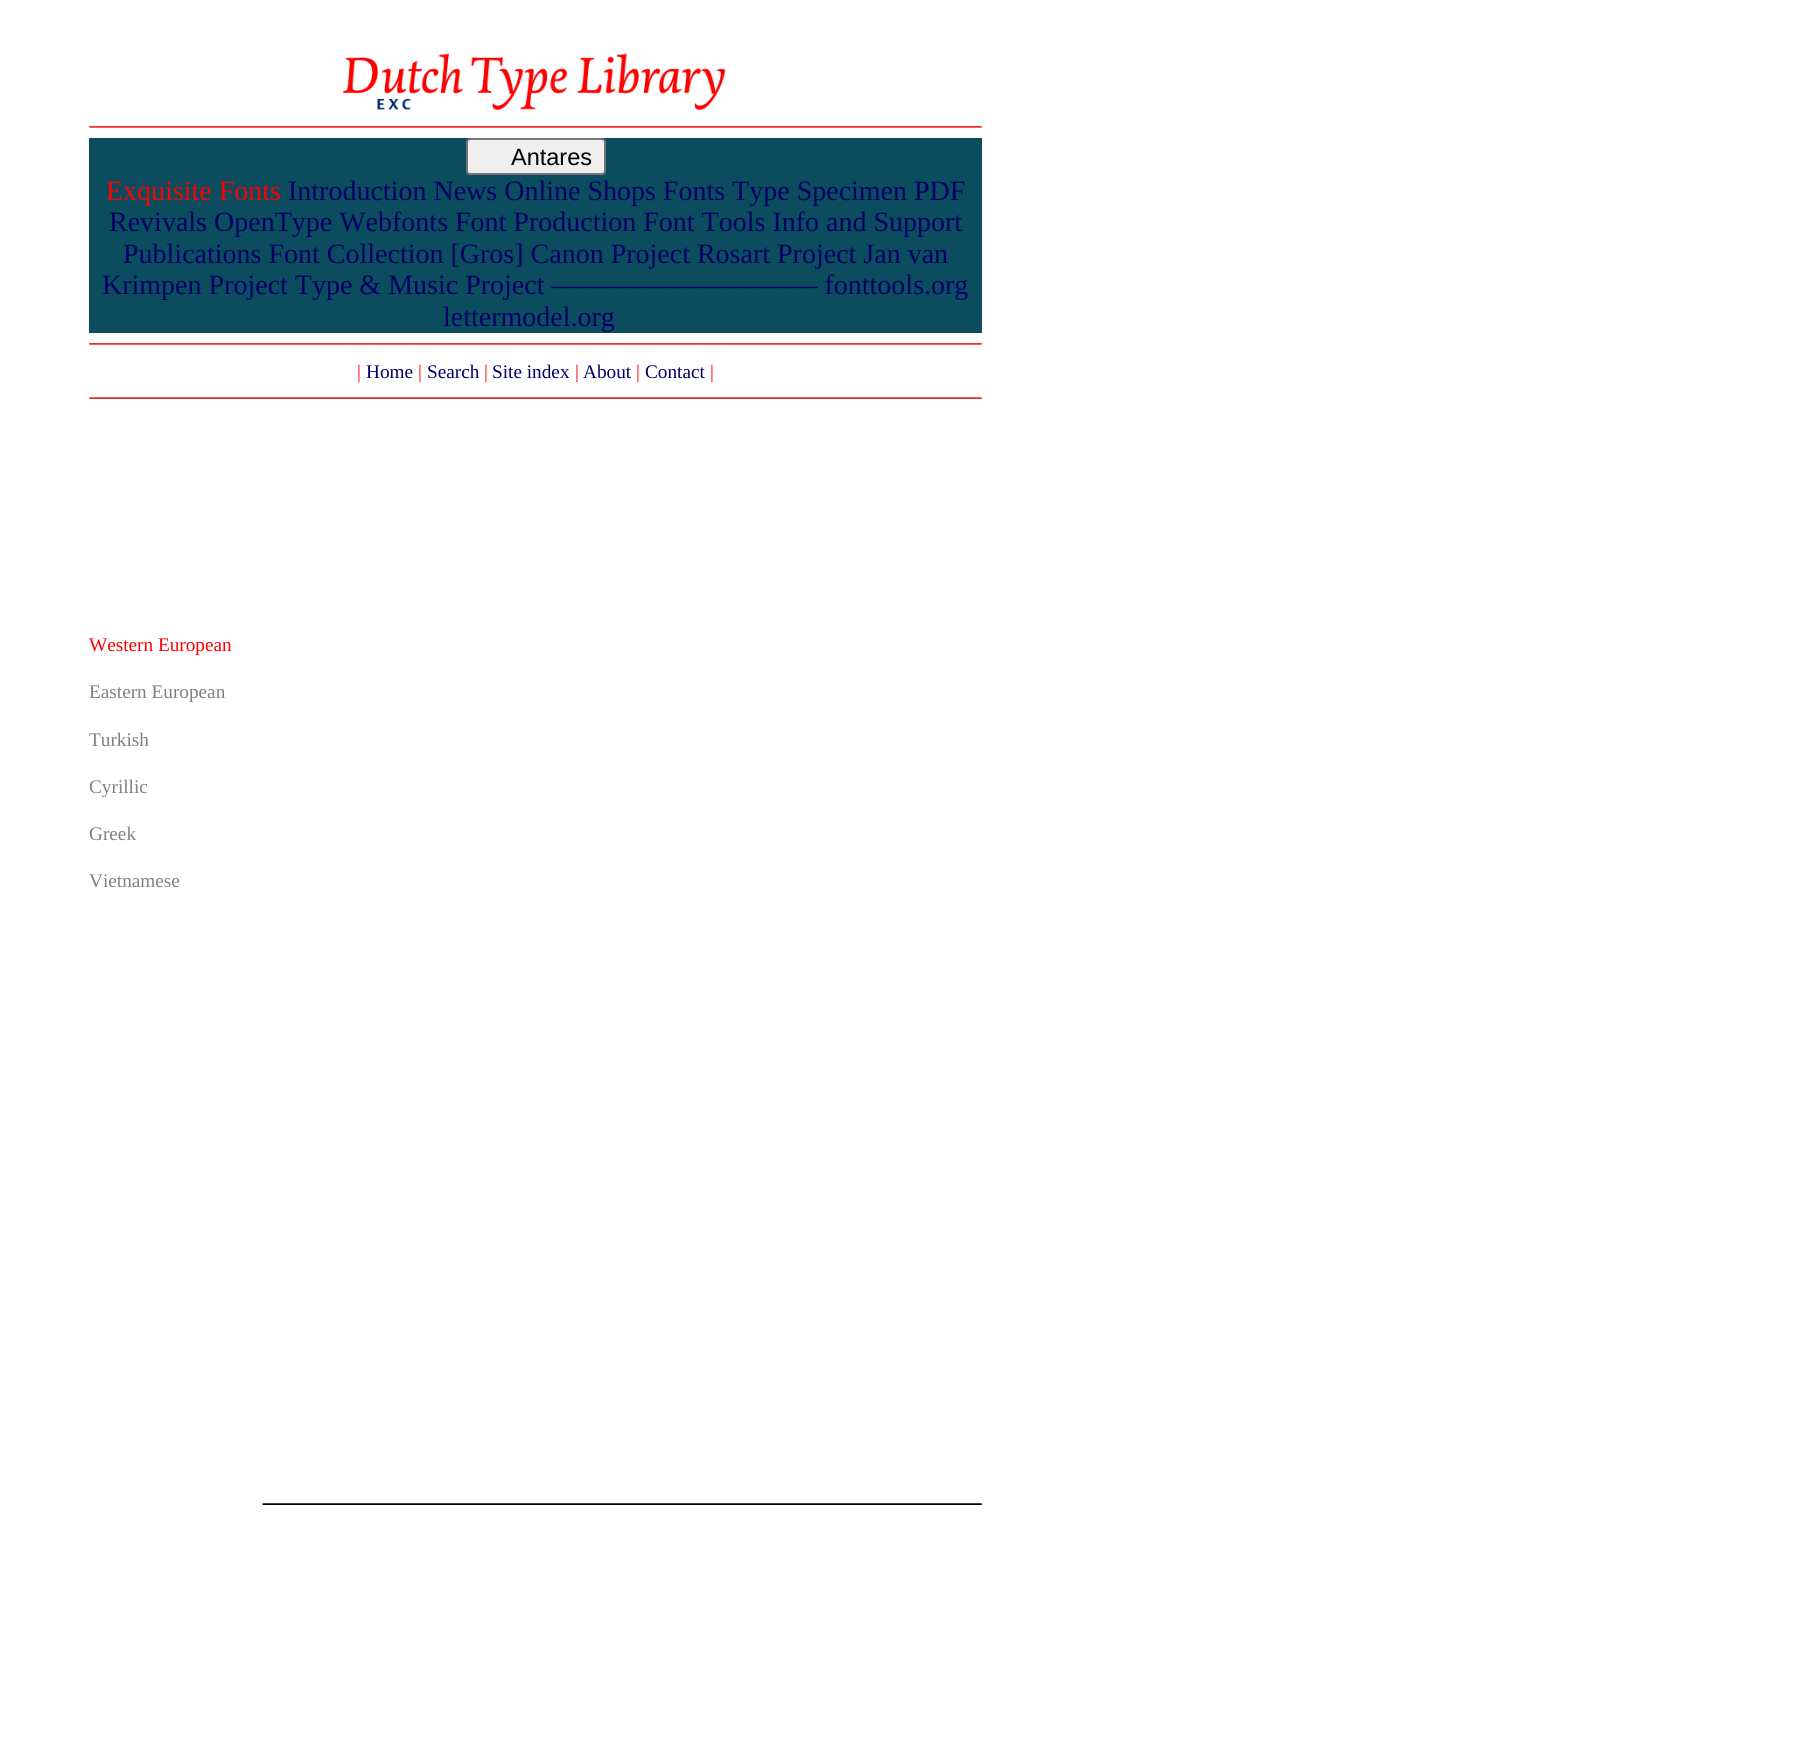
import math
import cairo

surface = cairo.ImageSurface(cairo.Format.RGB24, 1819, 1757)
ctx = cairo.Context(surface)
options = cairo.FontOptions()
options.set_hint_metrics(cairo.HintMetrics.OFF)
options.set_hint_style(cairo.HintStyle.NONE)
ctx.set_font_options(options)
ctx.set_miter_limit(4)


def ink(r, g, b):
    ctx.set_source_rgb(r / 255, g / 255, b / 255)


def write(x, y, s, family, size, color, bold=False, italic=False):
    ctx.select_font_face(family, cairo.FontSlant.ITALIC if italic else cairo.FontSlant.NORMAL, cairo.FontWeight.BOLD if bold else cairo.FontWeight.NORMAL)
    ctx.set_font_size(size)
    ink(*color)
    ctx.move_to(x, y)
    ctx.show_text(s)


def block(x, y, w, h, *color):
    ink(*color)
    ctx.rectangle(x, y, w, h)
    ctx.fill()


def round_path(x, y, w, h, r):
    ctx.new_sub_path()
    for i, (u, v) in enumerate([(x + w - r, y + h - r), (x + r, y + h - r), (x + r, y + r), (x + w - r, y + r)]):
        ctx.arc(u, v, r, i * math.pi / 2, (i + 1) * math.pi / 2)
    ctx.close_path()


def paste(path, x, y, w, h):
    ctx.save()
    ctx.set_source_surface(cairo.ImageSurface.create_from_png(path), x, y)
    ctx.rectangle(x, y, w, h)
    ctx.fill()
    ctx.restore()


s1 = dict(family="Liberation Sans", size=23.5, color=(0, 0, 0))
s2 = dict(family="Liberation Serif", size=28, color=(255, 0, 0))
s3 = dict(family="Liberation Serif", size=28, color=(0, 0, 102))
s4 = dict(family="Liberation Serif", size=19.25, color=(255, 0, 0))
s5 = dict(family="Liberation Serif", size=19.25, color=(0, 0, 102))
s6 = dict(family="Liberation Serif", size=19.25, color=(128, 128, 128))

ink(255, 255, 255)
ctx.paint()
paste("pic1.png", 343, 53, 383, 58)
paste("pic2.png", 89, 126, 893, 2)
block(89, 138, 893, 195, 11, 76, 95)
ink(239, 239, 239)
round_path(467, 139, 138, 35, 3)
ctx.fill_preserve()
ink(118, 118, 118)
ctx.stroke()
write(511, 165, "Antares", **s1)
write(106, 200, "Exquisite Fonts", **s2)
write(288, 200, "Introduction News Online Shops Fonts Type Specimen PDF", **s3)
write(109, 231, "Revivals OpenType Webfonts Font Production Font Tools Info and Support", **s3)
write(123, 263, "Publications Font Collection [Gros] Canon Project Rosart Project Jan van", **s3)
write(102, 294, "Krimpen Project Type & Music Project ––––––––––––––––––– fonttools.org", **s3)
write(443, 326, "lettermodel.org", **s3)
paste("pic2.png", 89, 343, 893, 2)
write(357, 378, "|", **s4)
write(366, 378, "Home", **s5)
write(418, 378, "|", **s4)
write(427, 378, "Search", **s5)
write(484, 378, "|", **s4)
write(492, 378, "Site index", **s5)
write(575, 378, "|", **s4)
write(583, 378, "About", **s5)
write(636, 378, "|", **s4)
write(645, 378, "Contact", **s5)
write(710, 378, "|", **s4)
paste("pic3.png", 89, 397, 893, 2)
write(89, 651, "Western European", **s4)
write(89, 698, "Eastern European", **s6)
write(89, 746, "Turkish", **s6)
write(89, 793, "Cyrillic", **s6)
write(89, 840, "Greek", **s6)
write(89, 887, "Vietnamese", **s6)
paste("pic4.png", 262, 1503, 720, 2)
surface.write_to_png("screenshot.png")
